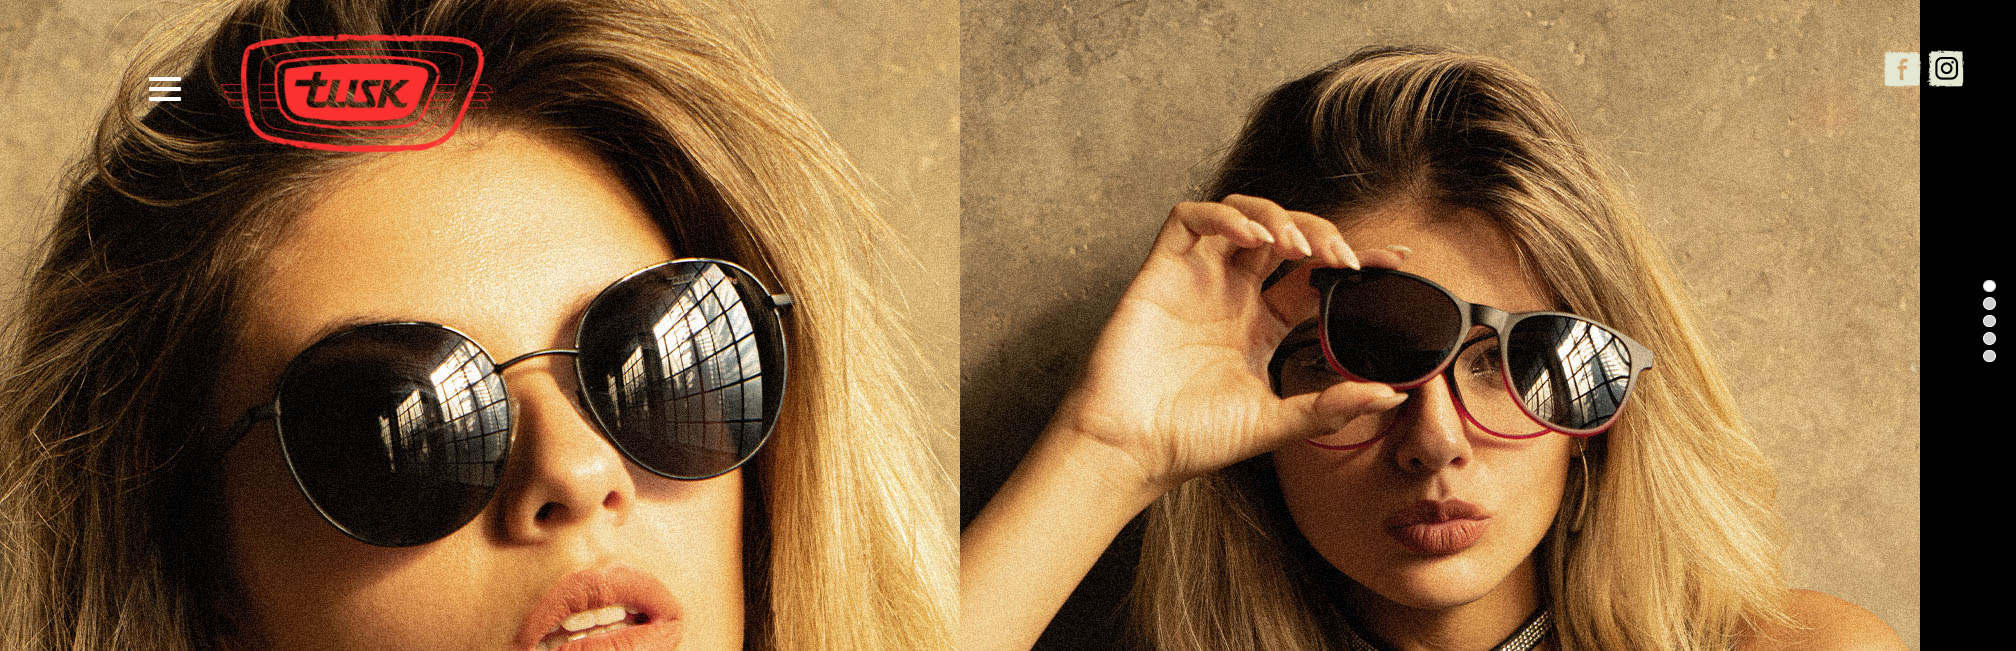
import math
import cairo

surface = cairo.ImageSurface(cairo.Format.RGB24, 2016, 651)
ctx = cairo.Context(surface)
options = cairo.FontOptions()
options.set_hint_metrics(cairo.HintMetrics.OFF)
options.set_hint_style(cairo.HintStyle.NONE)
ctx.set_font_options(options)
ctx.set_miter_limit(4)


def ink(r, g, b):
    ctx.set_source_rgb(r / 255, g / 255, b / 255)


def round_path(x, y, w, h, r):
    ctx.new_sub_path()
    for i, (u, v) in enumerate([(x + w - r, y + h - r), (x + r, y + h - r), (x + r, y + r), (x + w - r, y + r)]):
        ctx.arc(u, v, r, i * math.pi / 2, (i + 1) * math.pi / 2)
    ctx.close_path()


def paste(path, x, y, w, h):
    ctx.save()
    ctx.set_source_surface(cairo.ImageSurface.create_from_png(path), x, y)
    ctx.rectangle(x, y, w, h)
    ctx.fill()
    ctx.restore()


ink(0, 0, 0)
ctx.paint()
paste("pic1.png", 0, 0, 1920, 651)
ink(255, 255, 255)
round_path(149, 77, 32, 4, 1)
ctx.fill()
round_path(149, 87, 32, 4, 1)
ctx.fill()
round_path(149, 97, 32, 4, 1)
ctx.fill()
paste("pic2.png", 220, 34, 274, 119)
paste("pic3.png", 1884, 50, 37, 37)
paste("pic4.png", 1927, 50, 37, 37)
round_path(1983.5, 280.5, 12, 11, 5.5)
ctx.fill_preserve()
ink(207, 207, 207)
ctx.set_line_width(1)
ctx.stroke()
ctx.arc(1989.5, 303.5, 6, 0, 2 * math.pi)
ctx.fill_preserve()
ink(255, 255, 255)
ctx.stroke()
ink(207, 207, 207)
round_path(1983.5, 315.5, 12, 11, 5.5)
ctx.fill_preserve()
ink(255, 255, 255)
ctx.stroke()
ink(207, 207, 207)
ctx.arc(1989.5, 338.5, 6, 0, 2 * math.pi)
ctx.fill_preserve()
ink(255, 255, 255)
ctx.stroke()
ink(207, 207, 207)
round_path(1983.5, 350.5, 12, 11, 5.5)
ctx.fill_preserve()
ink(255, 255, 255)
ctx.stroke()
surface.write_to_png("screenshot.png")
